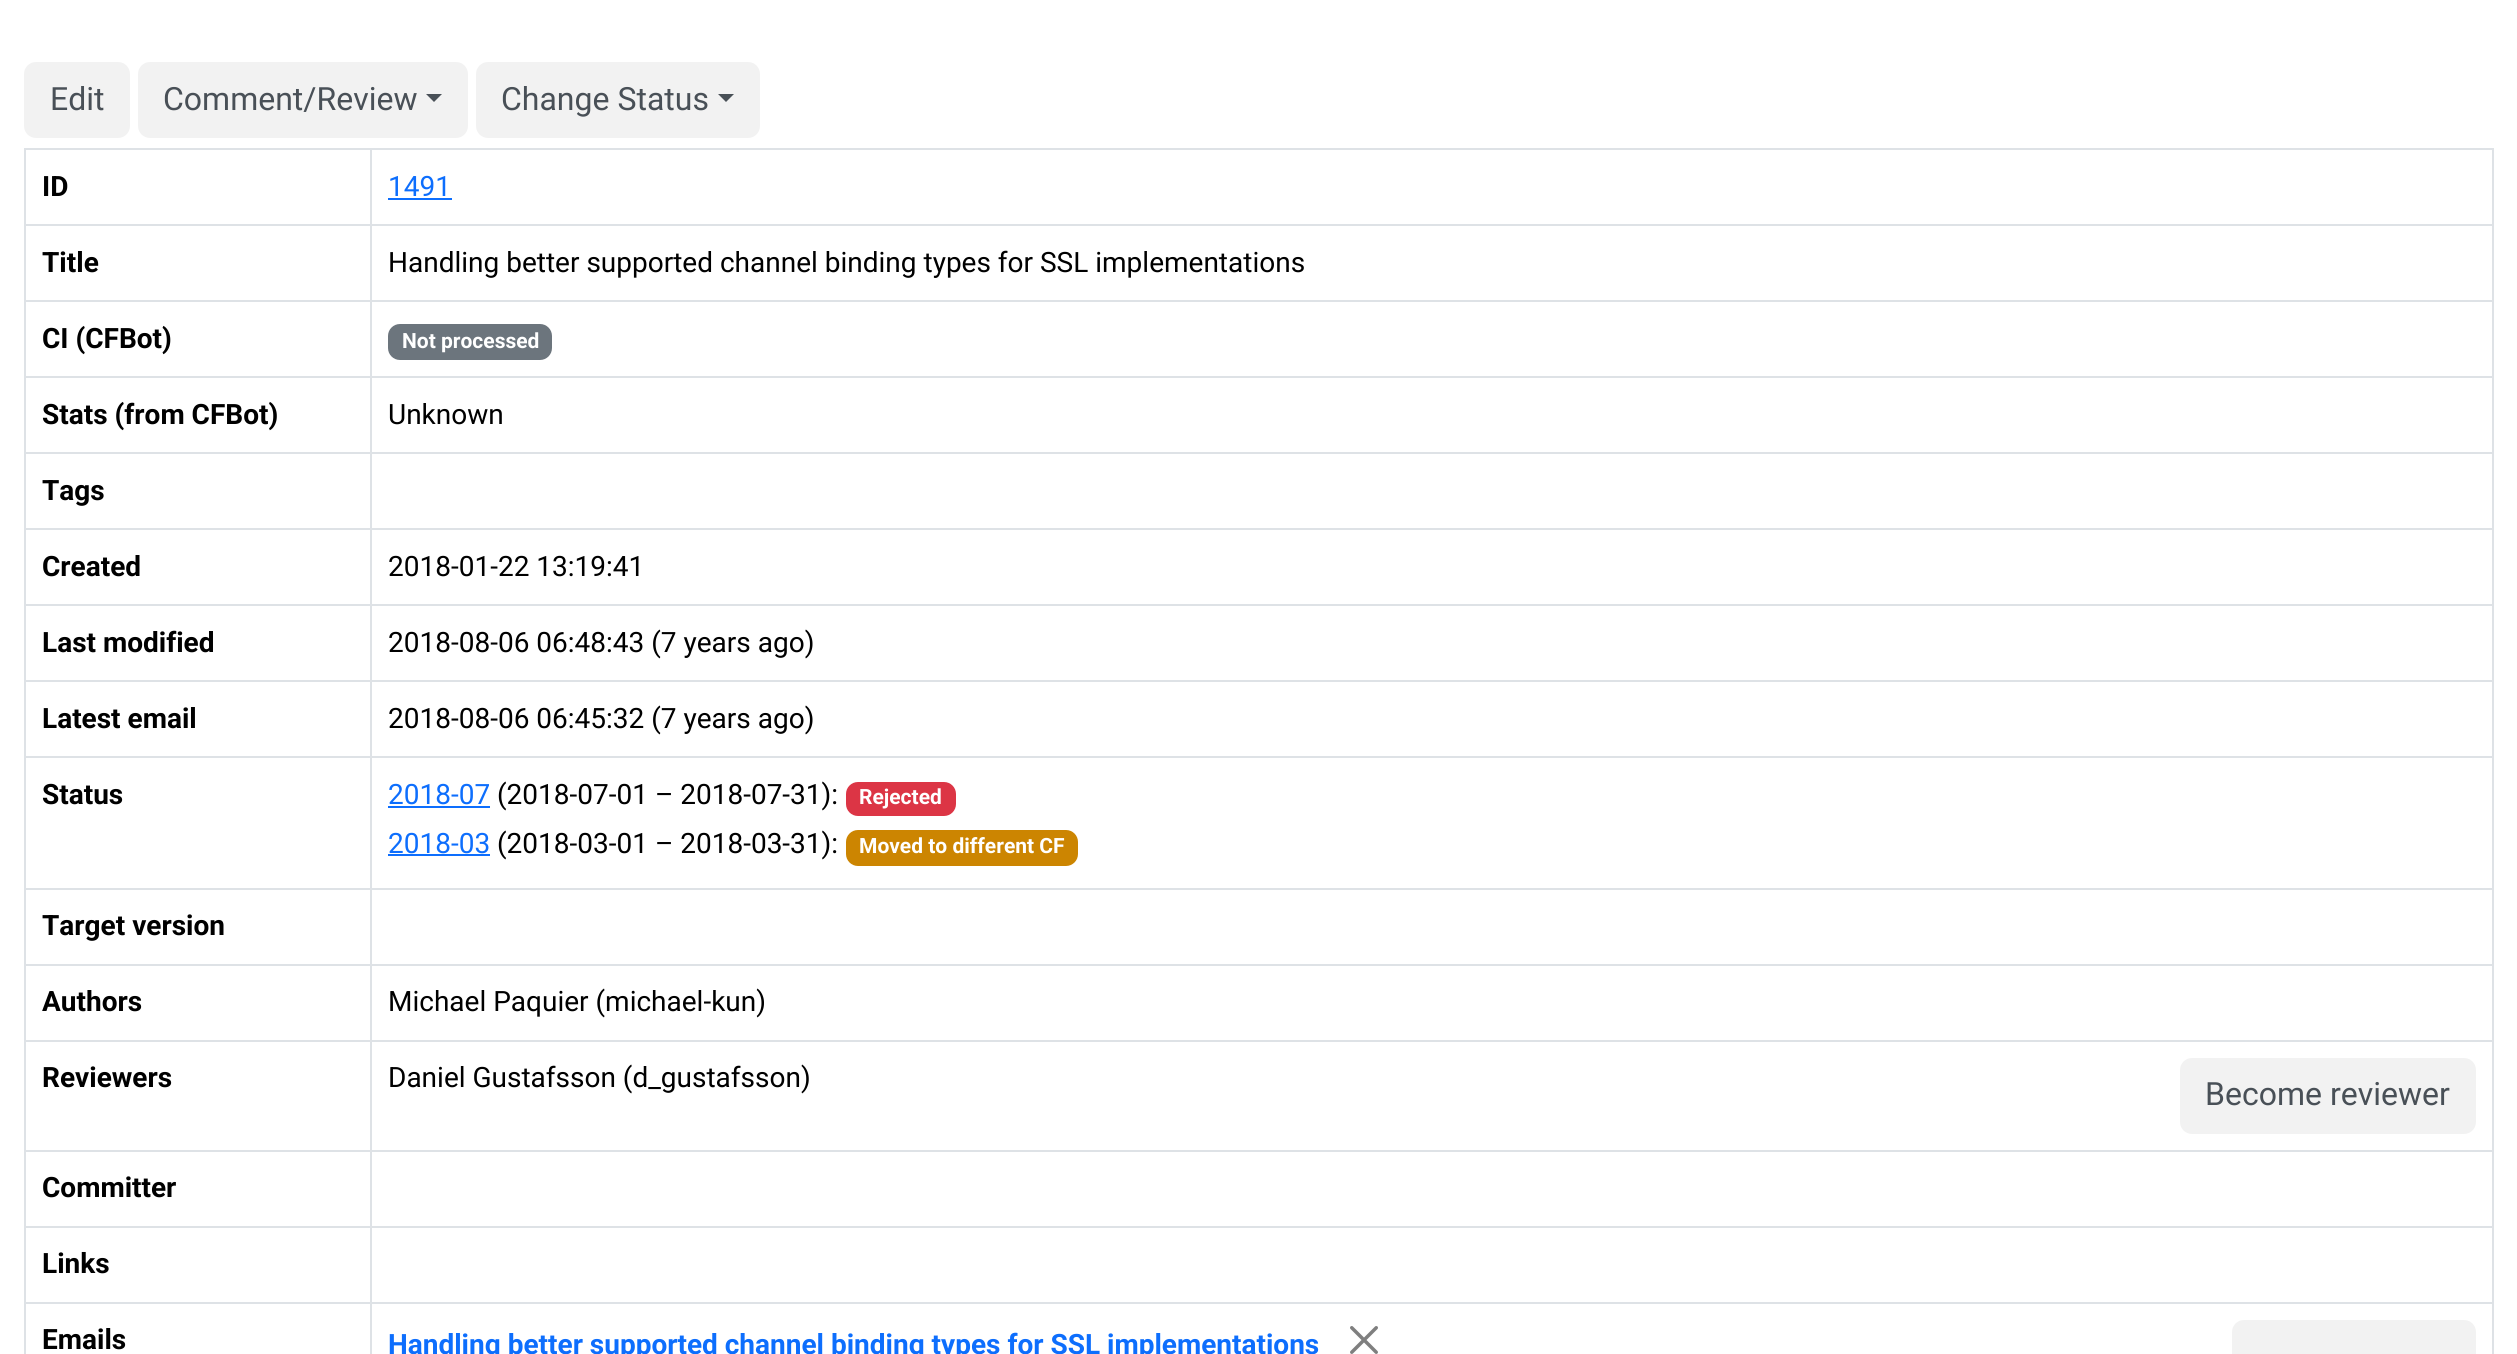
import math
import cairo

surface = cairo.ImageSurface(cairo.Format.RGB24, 2517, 1354)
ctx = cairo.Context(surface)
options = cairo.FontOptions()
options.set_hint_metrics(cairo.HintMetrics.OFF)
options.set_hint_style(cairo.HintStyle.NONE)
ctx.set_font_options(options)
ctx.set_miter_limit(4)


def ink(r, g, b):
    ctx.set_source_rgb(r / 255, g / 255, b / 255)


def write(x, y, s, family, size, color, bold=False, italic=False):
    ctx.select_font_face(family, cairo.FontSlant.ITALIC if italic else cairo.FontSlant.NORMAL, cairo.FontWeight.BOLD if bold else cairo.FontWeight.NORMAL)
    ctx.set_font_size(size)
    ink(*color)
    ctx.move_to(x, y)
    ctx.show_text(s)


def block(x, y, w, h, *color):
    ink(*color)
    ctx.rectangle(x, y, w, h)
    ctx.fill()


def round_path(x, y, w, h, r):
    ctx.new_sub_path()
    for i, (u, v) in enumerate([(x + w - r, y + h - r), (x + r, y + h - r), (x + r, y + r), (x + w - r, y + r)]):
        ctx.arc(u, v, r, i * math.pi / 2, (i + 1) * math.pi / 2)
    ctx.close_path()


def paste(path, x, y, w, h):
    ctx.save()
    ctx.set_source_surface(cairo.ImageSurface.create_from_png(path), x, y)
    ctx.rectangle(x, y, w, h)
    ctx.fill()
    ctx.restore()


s1 = dict(family="Roboto", size=32, color=(73, 80, 87))
s2 = dict(family="Roboto", size=28, color=(0, 0, 0), bold=True)
s3 = dict(family="Roboto", size=28, color=(13, 110, 253))
s4 = dict(family="Roboto", size=28, color=(0, 0, 0))
s5 = dict(family="Roboto", size=21, color=(255, 255, 255), bold=True)
s6 = dict(family="Roboto", size=28, color=(13, 110, 253), bold=True)

ink(255, 255, 255)
ctx.paint()
ink(242, 242, 242)
round_path(25, 63, 104, 74, 11)
ctx.fill_preserve()
ctx.stroke()
write(50, 110, "Edit", **s1)
ink(242, 242, 242)
round_path(139, 63, 328, 74, 11)
ctx.fill_preserve()
ctx.stroke()
write(163, 110, "Comment/Review", **s1)
ctx.new_path()
ctx.move_to(426, 94)
ctx.line_to(442, 94)
ctx.line_to(434, 102)
ctx.close_path()
ctx.fill()
ink(242, 242, 242)
round_path(477, 63, 282, 74, 11)
ctx.fill_preserve()
ctx.stroke()
write(501, 110, "Change Status", **s1)
ctx.new_path()
ctx.move_to(718, 94)
ctx.line_to(734, 94)
ctx.line_to(726, 102)
ctx.close_path()
ctx.fill()
block(24, 148, 2470, 2, 222, 226, 230)
write(42, 196, "ID", **s2)
write(388, 196, "1491", **s3)
block(388, 198, 64, 2, 13, 110, 253)
block(24, 224, 2470, 2, 222, 226, 230)
write(42, 272, "Title", **s2)
write(388, 272, "Handling better supported channel binding types for SSL implementations", **s4)
block(24, 300, 2470, 2, 222, 226, 230)
write(42, 348, "CI (CFBot)", **s2)
ink(108, 117, 125)
round_path(388, 324, 164, 36, 12)
ctx.fill()
write(402, 348, "Not processed", **s5)
block(24, 376, 2470, 2, 222, 226, 230)
write(42, 424, "Stats (from CFBot)", **s2)
write(388, 424, "Unknown", **s4)
block(24, 452, 2470, 2, 222, 226, 230)
write(42, 500, "Tags", **s2)
block(24, 528, 2470, 2, 222, 226, 230)
write(42, 576, "Created", **s2)
write(388, 576, "2018-01-22 13:19:41", **s4)
block(24, 604, 2470, 2, 222, 226, 230)
write(42, 652, "Last modified", **s2)
write(388, 652, "2018-08-06 06:48:43 (7 years ago)", **s4)
block(24, 680, 2470, 2, 222, 226, 230)
write(42, 728, "Latest email", **s2)
write(388, 728, "2018-08-06 06:45:32 (7 years ago)", **s4)
block(24, 756, 2470, 2, 222, 226, 230)
write(42, 804, "Status", **s2)
write(388, 804, "2018-07", **s3)
block(388, 806, 102, 2, 13, 110, 253)
write(497, 804, "(2018-07-01 – 2018-07-31):", **s4)
ink(220, 53, 69)
round_path(846, 782, 110, 34, 12)
ctx.fill()
write(859, 804, "Rejected", **s5)
write(388, 853, "2018-03", **s3)
block(388, 854, 102, 2, 13, 110, 253)
write(497, 853, "(2018-03-01 – 2018-03-31):", **s4)
ink(204, 133, 1)
round_path(846, 830, 232, 36, 12)
ctx.fill()
write(859, 853, "Moved to different CF", **s5)
block(24, 888, 2470, 2, 222, 226, 230)
write(42, 935, "Target version", **s2)
block(24, 964, 2470, 2, 222, 226, 230)
write(42, 1011, "Authors", **s2)
write(388, 1011, "Michael Paquier (michael-kun)", **s4)
block(24, 1040, 2470, 2, 222, 226, 230)
write(42, 1087, "Reviewers", **s2)
write(388, 1087, "Daniel Gustafsson (d_gustafsson)", **s4)
ink(242, 242, 242)
round_path(2181, 1059, 294, 74, 11)
ctx.fill_preserve()
ctx.stroke()
write(2205, 1105, "Become reviewer", **s1)
block(24, 1150, 2470, 2, 222, 226, 230)
write(42, 1197, "Committer", **s2)
block(24, 1226, 2470, 2, 222, 226, 230)
write(42, 1273, "Links", **s2)
block(24, 1302, 2470, 2, 222, 226, 230)
block(24, 148, 2, 1206, 222, 226, 230)
write(42, 1349, "Emails", **s2)
block(2492, 148, 2, 1206, 222, 226, 230)
block(370, 148, 2, 1206, 222, 226, 230)
write(388, 1354, "Handling better supported channel binding types for SSL implementations", **s6)
paste("pic1.png", 1350, 1326, 28, 28)
ink(242, 242, 242)
round_path(2233, 1321, 242, 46, 11)
ctx.fill_preserve()
ctx.stroke()
surface.write_to_png("screenshot.png")
